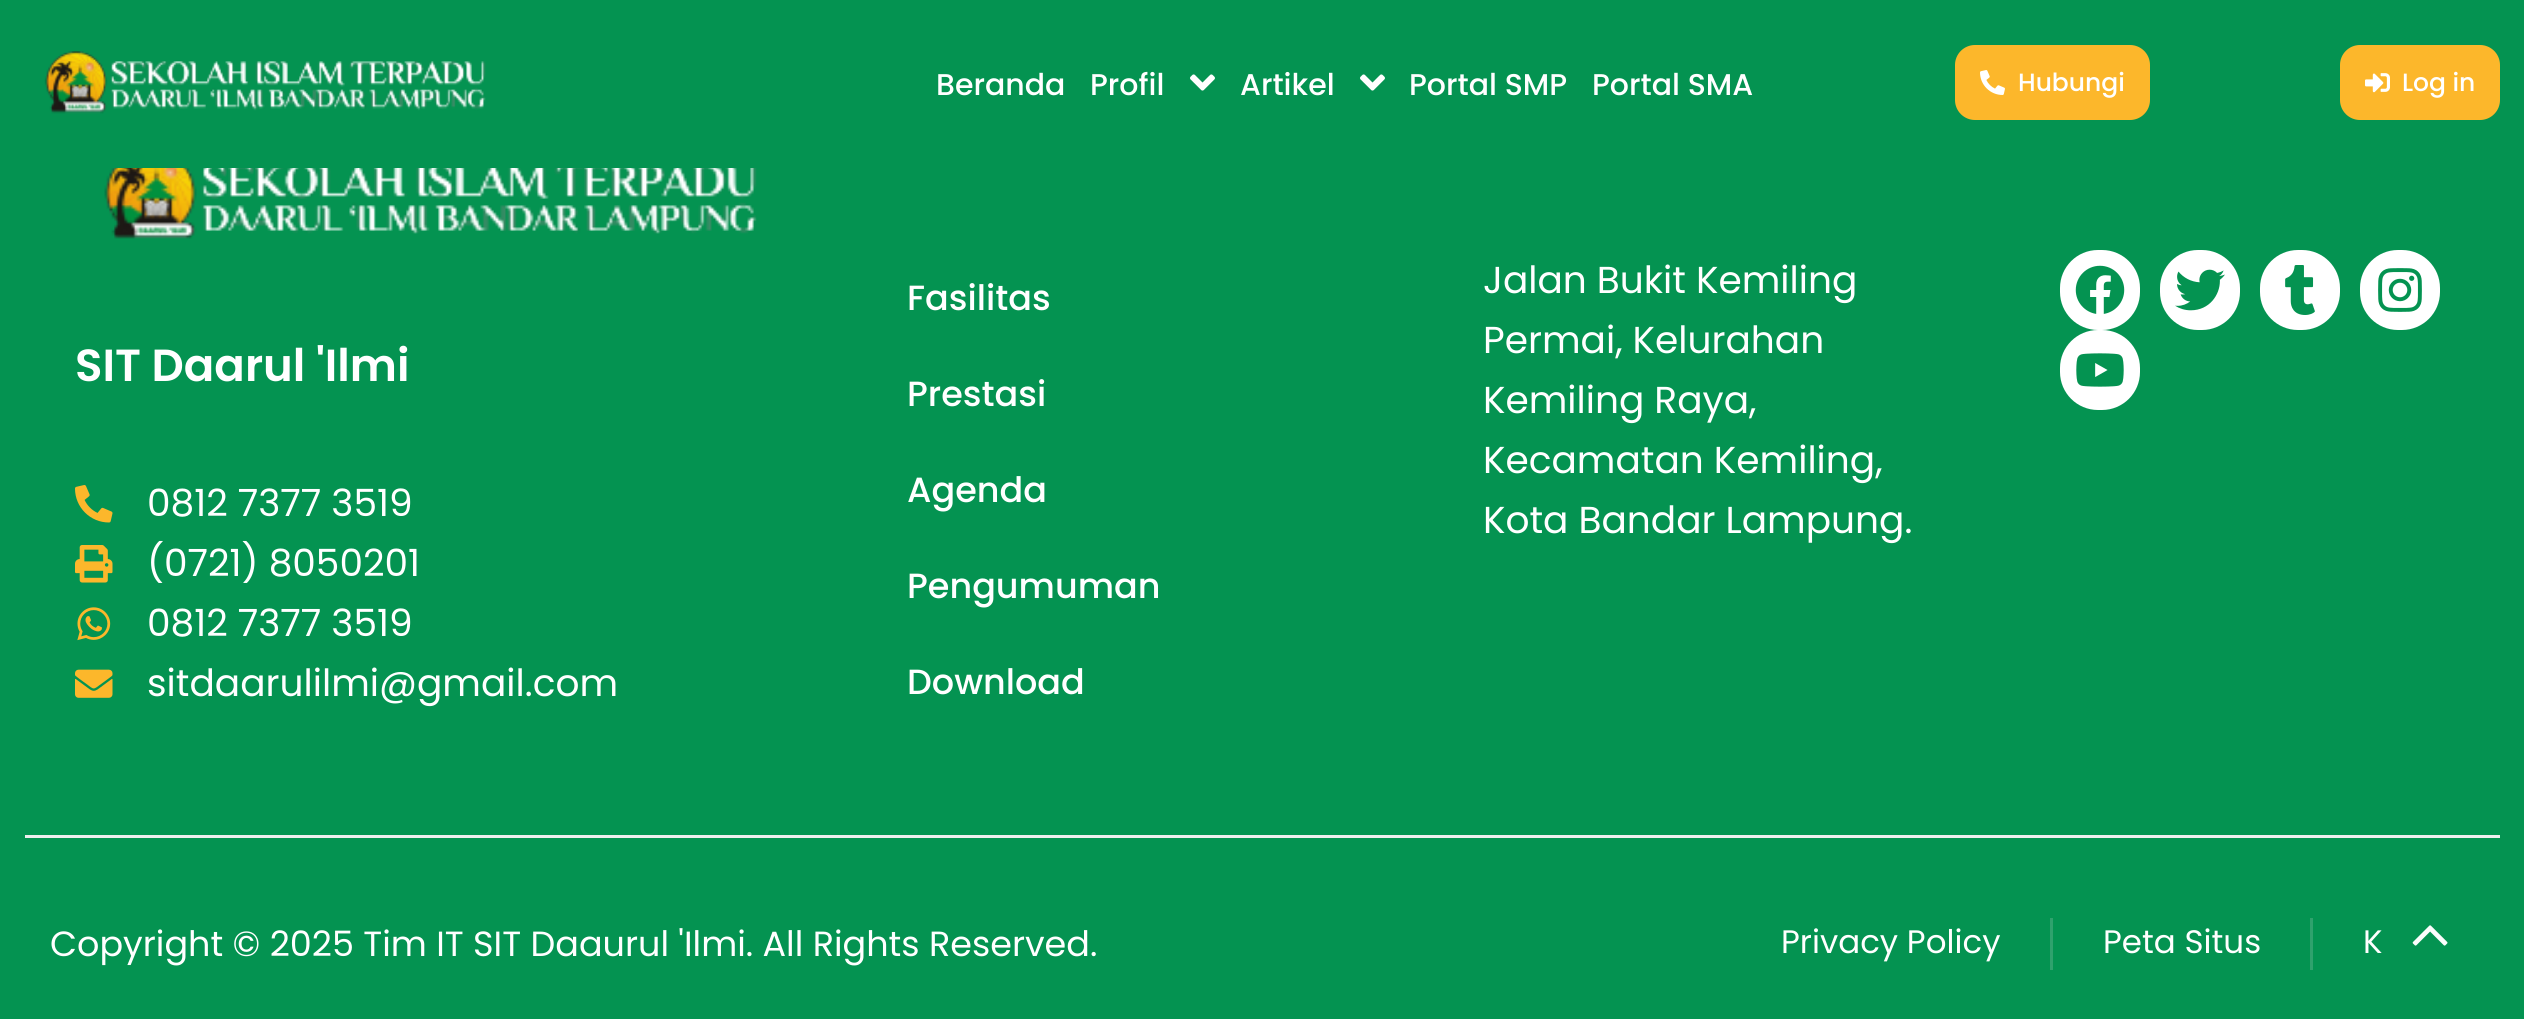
import math
import cairo

surface = cairo.ImageSurface(cairo.Format.RGB24, 2524, 1019)
ctx = cairo.Context(surface)
options = cairo.FontOptions()
options.set_hint_metrics(cairo.HintMetrics.OFF)
options.set_hint_style(cairo.HintStyle.NONE)
ctx.set_font_options(options)
ctx.set_miter_limit(4)


def ink(r, g, b):
    ctx.set_source_rgb(r / 255, g / 255, b / 255)


def write(x, y, s, family, size, color, bold=False, italic=False):
    ctx.select_font_face(family, cairo.FontSlant.ITALIC if italic else cairo.FontSlant.NORMAL, cairo.FontWeight.BOLD if bold else cairo.FontWeight.NORMAL)
    ctx.set_font_size(size)
    ink(*color)
    ctx.move_to(x, y)
    ctx.show_text(s)


def block(x, y, w, h, *color):
    ink(*color)
    ctx.rectangle(x, y, w, h)
    ctx.fill()


def round_path(x, y, w, h, r):
    ctx.new_sub_path()
    for i, (u, v) in enumerate([(x + w - r, y + h - r), (x + r, y + h - r), (x + r, y + r), (x + w - r, y + r)]):
        ctx.arc(u, v, r, i * math.pi / 2, (i + 1) * math.pi / 2)
    ctx.close_path()


def paste(path, x, y, w, h):
    ctx.save()
    ctx.set_source_surface(cairo.ImageSurface.create_from_png(path), x, y)
    ctx.rectangle(x, y, w, h)
    ctx.fill()
    ctx.restore()


s1 = dict(family="Poppins Medium", size=30, color=(255, 255, 255))
s2 = dict(family="Poppins Medium", size=25, color=(255, 255, 255))
s3 = dict(family="Poppins SemiBold", size=45, color=(255, 255, 255))
s4 = dict(family="Poppins", size=37.5, color=(255, 255, 255))
s5 = dict(family="Poppins Medium", size=35, color=(255, 255, 255))
s6 = dict(family="Poppins", size=35, color=(255, 255, 255))
s7 = dict(family="Poppins", size=32.5, color=(255, 255, 255))

ink(4, 147, 81)
ctx.paint()
paste("pic1.png", 44, 51, 442, 63)
write(936, 95, "Beranda", **s1)
write(1090, 95, "Profil", **s1)
paste("pic2.png", 1190, 74, 25, 17)
write(1240, 95, "Artikel", **s1)
paste("pic2.png", 1360, 74, 25, 17)
write(1409, 95, "Portal SMP", **s1)
write(1592, 95, "Portal SMA", **s1)
ink(252, 183, 43)
round_path(1955, 45, 195, 75, 20)
ctx.fill()
paste("pic3.png", 1980, 70, 25, 25)
write(2018, 91, "Hubungi", **s2)
ink(252, 183, 43)
round_path(2340, 45, 160, 75, 20)
ctx.fill()
paste("pic4.png", 2365, 73, 25, 20)
write(2402, 91, "Log in", **s2)
paste("pic5.png", 104, 168, 653, 71)
write(75, 381, "SIT Daarul 'Ilmi", **s3)
paste("pic6.png", 75, 485, 38, 38)
write(147, 516, "0812 7377 3519", **s4)
paste("pic7.png", 75, 545, 38, 38)
write(147, 576, "(0721) 8050201", **s4)
paste("pic8.png", 77, 607, 34, 34)
write(147, 636, "0812 7377 3519", **s4)
paste("pic9.png", 75, 669, 38, 29)
write(147, 696, "sitdaarulilmi@gmail.com", **s4)
write(907, 310, "Fasilitas", **s5)
write(907, 406, "Prestasi", **s5)
write(907, 502, "Agenda", **s5)
write(907, 598, "Pengumuman", **s5)
write(907, 694, "Download", **s5)
write(1483, 293, "Jalan Bukit Kemiling", **s4)
write(1483, 353, "Permai, Kelurahan", **s4)
write(1483, 413, "Kemiling Raya,", **s4)
write(1483, 473, "Kecamatan Kemiling,", **s4)
write(1483, 533, "Kota Bandar Lampung.", **s4)
round_path(2060, 250, 80, 80, 38)
ctx.fill()
paste("pic10.png", 2075, 265, 50, 49)
round_path(2160, 250, 80, 80, 38)
ctx.fill()
paste("pic11.png", 2175, 269, 50, 42)
round_path(2260, 250, 80, 80, 38)
ctx.fill()
paste("pic12.png", 2285, 265, 30, 50)
round_path(2360, 250, 80, 80, 38)
ctx.fill()
paste("pic13.png", 2378, 268, 44, 44)
round_path(2060, 330, 80, 80, 38)
ctx.fill()
paste("pic14.png", 2076, 353, 48, 34)
block(25, 835, 2475, 3, 238, 238, 238)
write(50, 956, "Copyright © 2025 Tim IT SIT Daaurul 'Ilmi. All Rights Reserved.", **s6)
write(1781, 953, "Privacy Policy", **s7)
block(2050, 918, 3, 52, 47, 162, 109)
write(2103, 953, "Peta Situs", **s7)
block(2310, 918, 3, 52, 47, 162, 109)
write(2363, 953, "K", **s7)
paste("pic15.png", 2412, 925, 36, 21)
surface.write_to_png("screenshot.png")
